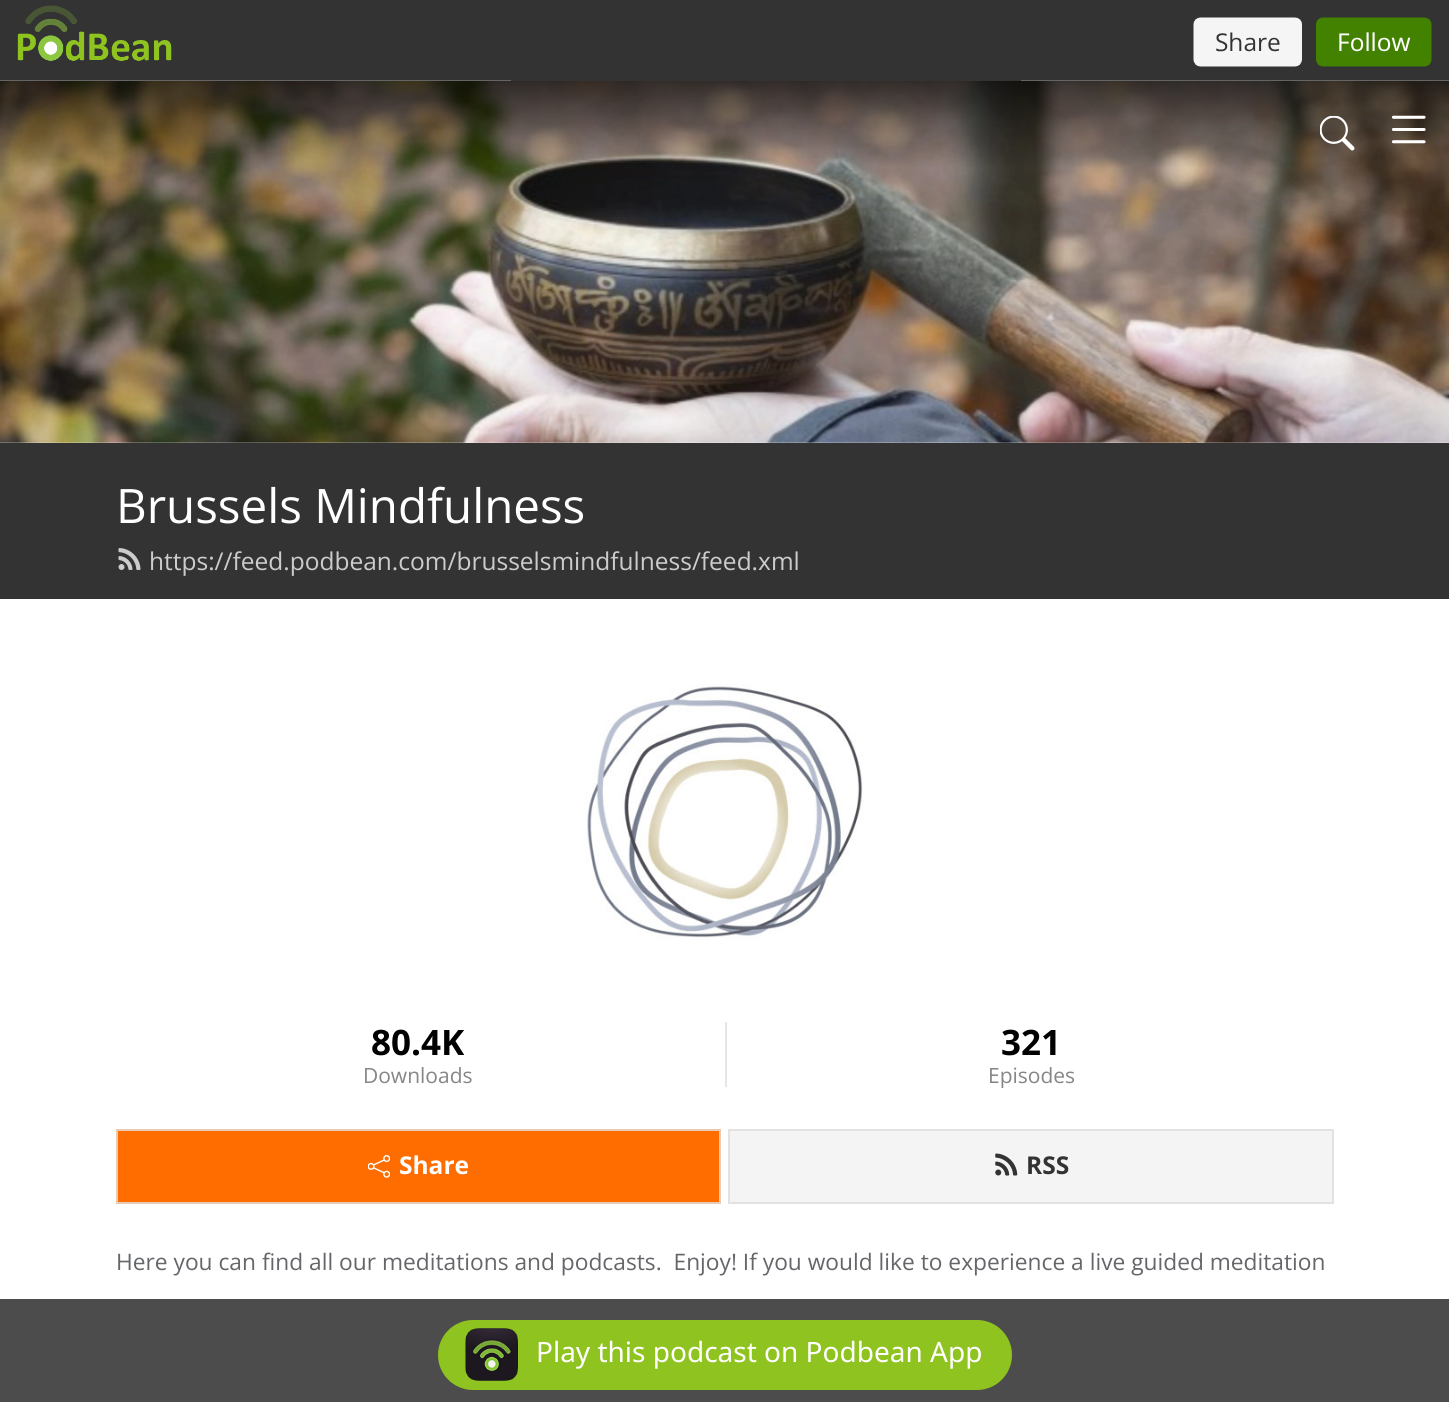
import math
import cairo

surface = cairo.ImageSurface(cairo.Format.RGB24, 1449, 1402)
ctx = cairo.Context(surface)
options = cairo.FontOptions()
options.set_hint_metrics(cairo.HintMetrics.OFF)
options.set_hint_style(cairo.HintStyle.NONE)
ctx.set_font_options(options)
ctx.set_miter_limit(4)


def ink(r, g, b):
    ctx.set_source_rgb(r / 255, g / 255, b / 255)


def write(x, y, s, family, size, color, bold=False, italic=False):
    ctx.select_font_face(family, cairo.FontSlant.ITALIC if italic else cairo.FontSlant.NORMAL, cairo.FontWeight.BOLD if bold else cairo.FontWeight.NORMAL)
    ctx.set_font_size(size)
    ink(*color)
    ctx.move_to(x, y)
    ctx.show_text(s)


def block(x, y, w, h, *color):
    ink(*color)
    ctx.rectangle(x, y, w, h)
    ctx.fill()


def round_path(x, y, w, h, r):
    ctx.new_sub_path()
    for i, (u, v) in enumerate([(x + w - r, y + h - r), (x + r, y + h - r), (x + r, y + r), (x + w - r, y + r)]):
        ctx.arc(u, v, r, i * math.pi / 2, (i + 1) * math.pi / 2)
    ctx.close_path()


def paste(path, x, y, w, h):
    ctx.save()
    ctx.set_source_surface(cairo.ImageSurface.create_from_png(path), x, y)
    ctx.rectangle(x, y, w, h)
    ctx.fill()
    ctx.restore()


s1 = dict(family="Open Sans", size=47.5, color=(255, 255, 255))
s2 = dict(family="Open Sans", size=24.5, color=(204, 204, 204))
s3 = dict(family="Open Sans", size=35, color=(0, 0, 0), bold=True)
s4 = dict(family="Open Sans", size=21, color=(134, 134, 134))
s5 = dict(family="Open Sans", size=24.5, color=(255, 255, 255), bold=True)
s6 = dict(family="Open Sans", size=24.5, color=(51, 51, 51), bold=True)
s7 = dict(family="Open Sans", size=22.75, color=(100, 102, 105))
s8 = dict(family="Noto Sans", size=28, color=(255, 255, 255))

ink(255, 255, 255)
ctx.paint()
block(0, 0, 1449, 5, 51, 51, 51)
paste("pic1.png", 0, 5, 1449, 76)
paste("pic4.png", 0, 81, 1449, 362)
paste("pic2.png", 1320, 116, 35, 35)
paste("pic3.png", 1391, 115, 35, 29)
block(0, 443, 1449, 156, 51, 51, 51)
write(116, 523, "Brussels Mindfulness", **s1)
paste("pic5.png", 118, 548, 23, 22)
write(149, 570, "https://feed.podbean.com/brusselsmindfulness/feed.xml", **s2)
paste("pic6.png", 585, 683, 279, 257)
write(371, 1055, "80.4K", **s3)
write(363, 1083, "Downloads", **s4)
block(725, 1022, 2, 65, 230, 230, 230)
write(1001, 1055, "321", **s3)
write(988, 1083, "Episodes", **s4)
ink(255, 109, 0)
ctx.rectangle(117, 1130, 603, 73)
ctx.fill_preserve()
ink(232, 203, 181)
ctx.stroke()
paste("pic7.png", 368, 1155, 22, 23)
write(399, 1174, "Share", **s5)
ink(244, 244, 244)
ctx.rectangle(729, 1130, 604, 73)
ctx.fill_preserve()
ink(226, 226, 226)
ctx.stroke()
paste("pic8.png", 995, 1153, 23, 23)
write(1026, 1174, "RSS", **s6)
write(116, 1270, "Here you can find all our meditations and podcasts.  Enjoy! If you would like to experience a live guided meditation", **s7)
ctx.set_source_rgba(0, 0, 0, 0.7)
ctx.rectangle(0, 1299, 1449, 103)
ctx.fill()
ink(143, 195, 31)
round_path(438, 1320, 574, 70, 35)
ctx.fill()
paste("pic9.png", 465, 1328, 53, 53)
write(536, 1362, "Play this podcast on Podbean App", **s8)
surface.write_to_png("screenshot.png")
